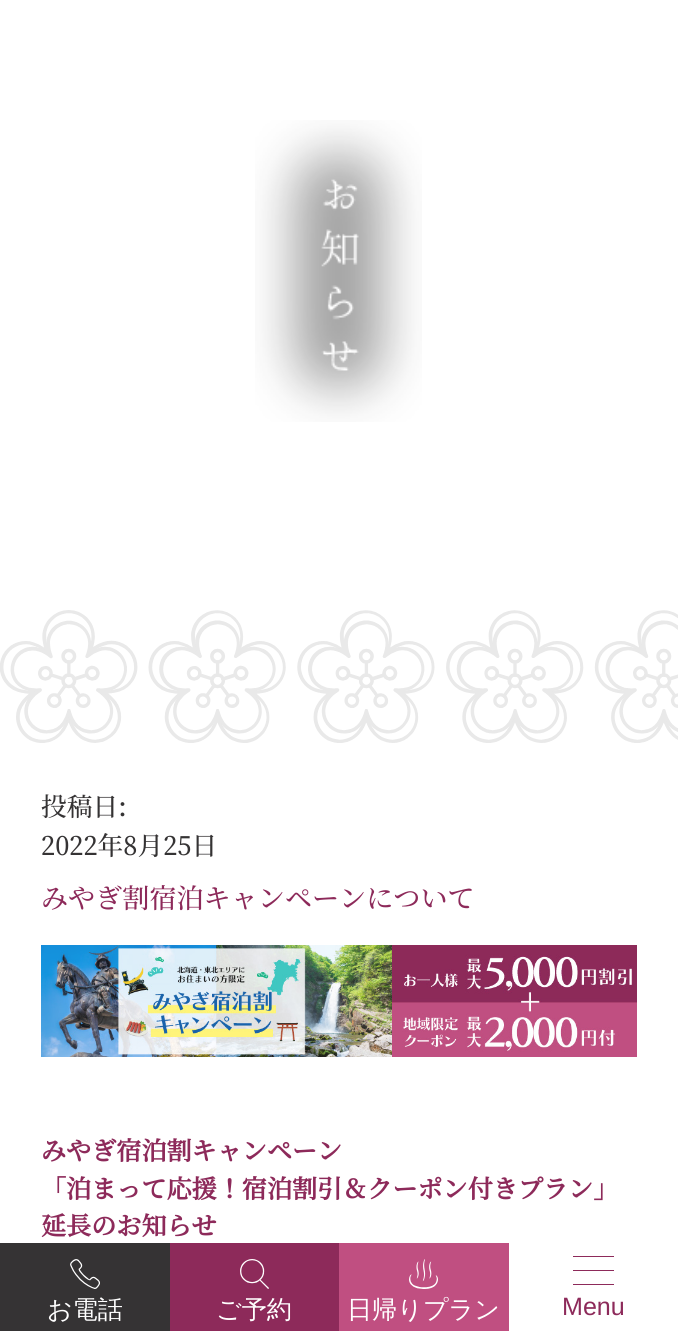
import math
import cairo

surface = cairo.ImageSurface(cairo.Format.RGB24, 678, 1331)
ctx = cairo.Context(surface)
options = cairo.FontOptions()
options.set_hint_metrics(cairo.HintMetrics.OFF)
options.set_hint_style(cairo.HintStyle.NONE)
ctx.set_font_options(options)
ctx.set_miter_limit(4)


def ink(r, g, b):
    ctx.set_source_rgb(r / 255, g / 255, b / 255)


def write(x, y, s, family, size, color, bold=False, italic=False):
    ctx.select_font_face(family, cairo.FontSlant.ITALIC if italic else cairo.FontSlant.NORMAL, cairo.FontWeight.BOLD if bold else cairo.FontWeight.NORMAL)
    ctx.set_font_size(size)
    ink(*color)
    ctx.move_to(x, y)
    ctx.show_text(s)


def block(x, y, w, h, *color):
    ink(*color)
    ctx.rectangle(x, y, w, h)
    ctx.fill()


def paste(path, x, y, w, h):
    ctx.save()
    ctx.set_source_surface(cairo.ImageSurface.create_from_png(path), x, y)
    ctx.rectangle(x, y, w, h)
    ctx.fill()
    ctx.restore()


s1 = dict(family="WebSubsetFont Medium", size=25.75, color=(53, 51, 52))
s2 = dict(family="WebSubsetFont Medium", size=27.1, color=(141, 42, 90))
s3 = dict(family="WebSubsetFont", size=25.1, color=(141, 42, 90), bold=True)
s4 = dict(family="WenQuanYi Zen Hei Medium", size=25.1, color=(255, 255, 255))
s5 = dict(family="Liberation Sans", size=25.1, color=(141, 42, 90))

ink(255, 255, 255)
ctx.paint()
paste("pic1.png", 255, 120, 167, 302)
paste("pic2.png", 0, 610, 678, 133)
write(41, 816, "投稿日:", **s1)
write(41, 855, "2022年8月25日", **s1)
write(41, 908, "みやぎ割宿泊キャンペーンについて", **s2)
paste("pic3.png", 41, 945, 596, 112)
write(41, 1160, "みやぎ宿泊割キャンペーン", **s3)
write(41, 1198, "「泊まって応援！宿泊割引＆クーポン付きプラン」", **s3)
write(41, 1235, "延長のお知らせ", **s3)
block(0, 1243, 170, 88, 53, 51, 52)
paste("pic4.png", 70, 1259, 30, 30)
write(47, 1318, "お電話", **s4)
block(170, 1243, 169, 88, 141, 42, 90)
paste("pic5.png", 240, 1259, 29, 30)
write(216, 1318, "ご予約", **s4)
block(339, 1243, 170, 88, 192, 79, 129)
paste("pic6.png", 409, 1259, 29, 30)
write(347, 1318, "日帰りプラン", **s4)
block(573, 1256, 41, 1, 141, 42, 90)
block(573, 1270, 41, 1, 141, 42, 90)
block(573, 1284, 41, 1, 141, 42, 90)
write(562, 1315, "Menu", **s5)
surface.write_to_png("screenshot.png")
